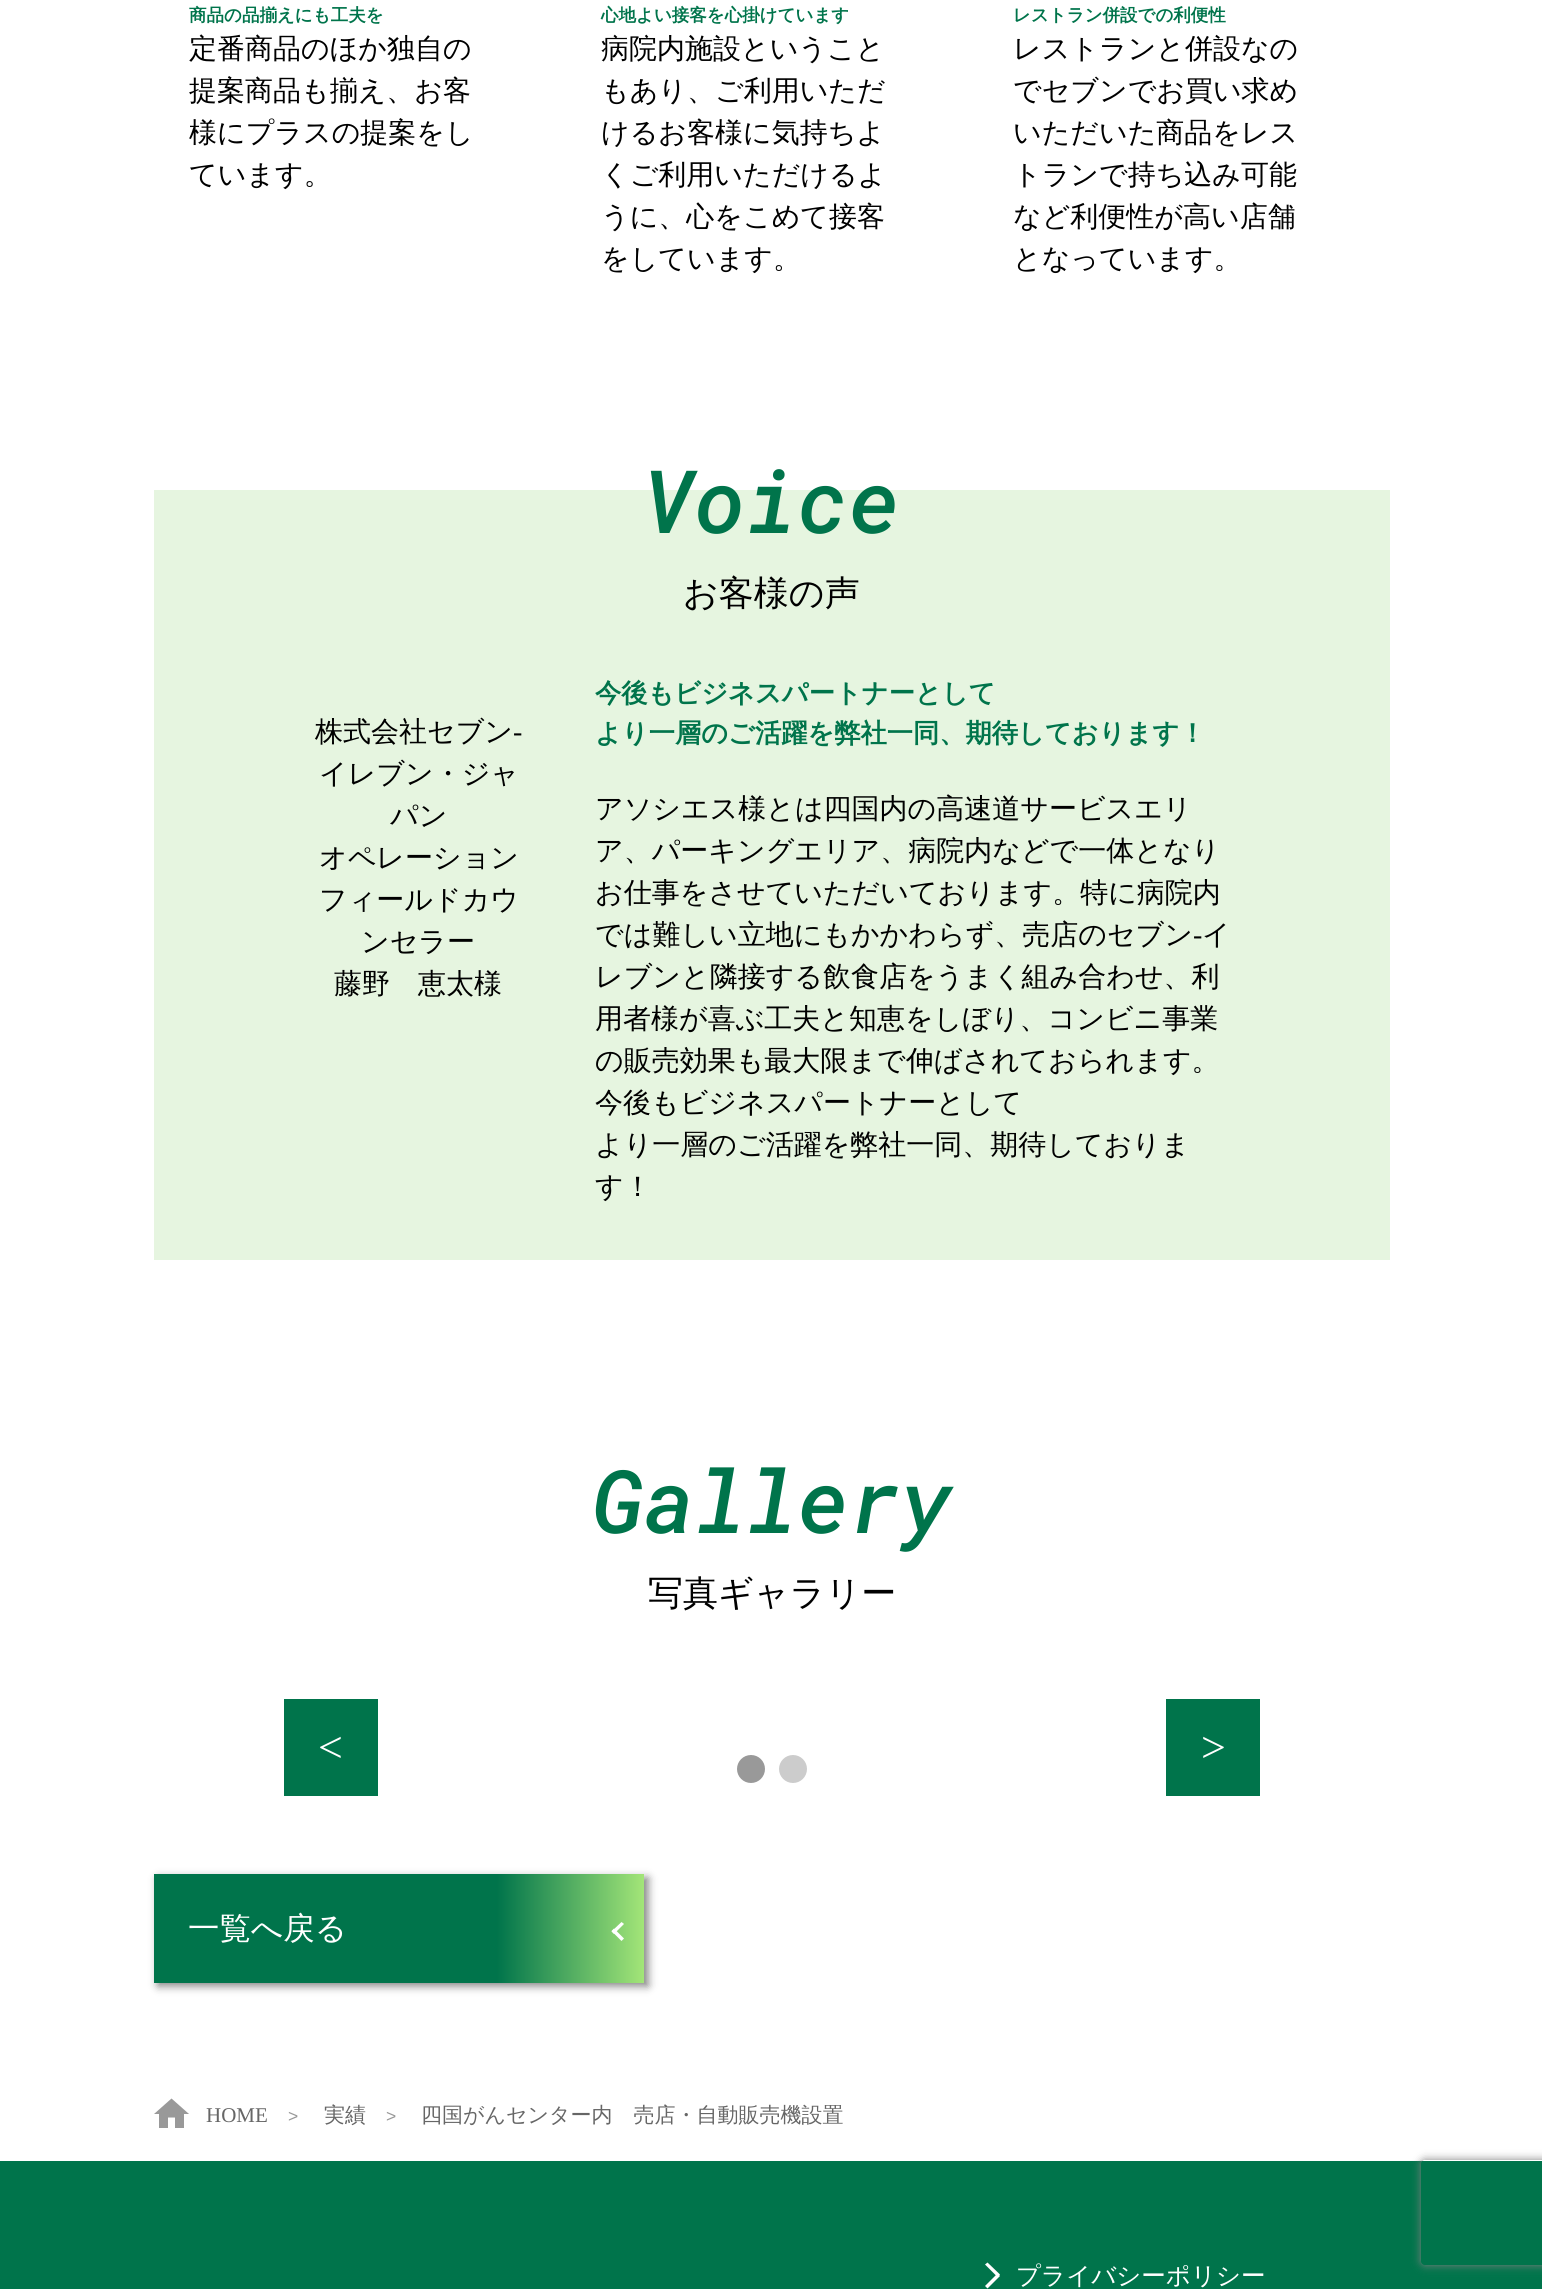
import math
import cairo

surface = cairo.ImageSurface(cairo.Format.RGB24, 1542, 2289)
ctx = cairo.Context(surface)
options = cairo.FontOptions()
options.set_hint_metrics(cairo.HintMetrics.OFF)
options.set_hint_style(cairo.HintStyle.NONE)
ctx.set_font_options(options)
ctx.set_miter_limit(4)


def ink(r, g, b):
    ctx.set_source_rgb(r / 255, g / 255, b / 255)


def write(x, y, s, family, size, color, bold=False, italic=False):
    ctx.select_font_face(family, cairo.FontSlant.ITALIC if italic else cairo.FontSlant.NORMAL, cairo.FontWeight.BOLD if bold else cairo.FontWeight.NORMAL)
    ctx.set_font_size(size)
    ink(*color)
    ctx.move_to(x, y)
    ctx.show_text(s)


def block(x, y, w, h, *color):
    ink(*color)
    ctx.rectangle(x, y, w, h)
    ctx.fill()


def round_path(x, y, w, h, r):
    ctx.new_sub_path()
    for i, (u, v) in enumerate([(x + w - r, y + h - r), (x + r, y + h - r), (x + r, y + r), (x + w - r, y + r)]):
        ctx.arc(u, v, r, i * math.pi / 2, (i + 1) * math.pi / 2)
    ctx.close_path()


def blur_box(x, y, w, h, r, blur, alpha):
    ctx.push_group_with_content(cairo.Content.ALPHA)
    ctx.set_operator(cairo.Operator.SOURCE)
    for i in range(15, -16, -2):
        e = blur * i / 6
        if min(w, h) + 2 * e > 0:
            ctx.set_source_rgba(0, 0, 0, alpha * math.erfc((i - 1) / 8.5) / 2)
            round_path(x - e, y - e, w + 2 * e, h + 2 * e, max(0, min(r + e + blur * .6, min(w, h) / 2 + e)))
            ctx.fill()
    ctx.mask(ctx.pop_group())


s1 = dict(family="WenQuanYi Zen Hei", size=17.5, color=(0, 116, 75), bold=True)
s2 = dict(family="WenQuanYi Zen Hei Medium", size=28, color=(0, 0, 0))
s3 = dict(family="Roboto Mono Medium", size=87.5, color=(0, 116, 75), italic=True)
s4 = dict(family="WenQuanYi Zen Hei Medium", size=35, color=(0, 0, 0))
s5 = dict(family="Liberation Serif", size=28, color=(0, 0, 0))
s6 = dict(family="WenQuanYi Zen Hei", size=26.25, color=(0, 116, 75), bold=True)
s7 = dict(family="Liberation Serif", size=44, color=(255, 255, 255))
s8 = dict(family="WenQuanYi Zen Hei Medium", size=31.5, color=(255, 255, 255))
s9 = dict(family="Liberation Serif", size=21, color=(102, 102, 102))
s10 = dict(family="Liberation Sans", size=17.5, color=(153, 153, 153))
s11 = dict(family="WenQuanYi Zen Hei Medium", size=21, color=(102, 102, 102))
s12 = dict(family="WenQuanYi Zen Hei Medium", size=24.5, color=(255, 255, 255))

ink(255, 255, 255)
ctx.paint()
write(189, 21, "商品の品揃えにも工夫を", **s1)
write(189, 58, "定番商品のほか独自の", **s2)
write(189, 100, "提案商品も揃え、お客", **s2)
write(189, 142, "様にプラスの提案をし", **s2)
write(189, 184, "ています。", **s2)
write(601, 21, "心地よい接客を心掛けています", **s1)
write(601, 58, "病院内施設ということ", **s2)
write(601, 100, "もあり、ご利用いただ", **s2)
write(601, 142, "けるお客様に気持ちよ", **s2)
write(601, 184, "くご利用いただけるよ", **s2)
write(601, 226, "うに、心をこめて接客", **s2)
write(601, 268, "をしています。", **s2)
write(1013, 21, "レストラン併設での利便性", **s1)
write(1013, 58, "レストランと併設なの", **s2)
write(1013, 100, "でセブンでお買い求め", **s2)
write(1013, 142, "いただいた商品をレス", **s2)
write(1013, 184, "トランで持ち込み可能", **s2)
write(1013, 226, "など利便性が高い店舗", **s2)
write(1013, 268, "となっています。", **s2)
block(154, 490, 1236, 770, 230, 245, 224)
write(643, 533, "Voice", **s3)
write(683, 605, "お客様の声", **s4)
write(315, 741, "株式会社セブン", **s2)
write(513, 741, "-", **s5)
write(319, 783, "イレブン・ジャ", **s2)
write(390, 825, "パン", **s2)
write(319, 867, "オペレーション", **s2)
write(319, 909, "フィールドカウ", **s2)
write(361, 951, "ンセラー", **s2)
write(334, 993, "藤野　恵太様", **s2)
write(595, 702, "今後もビジネスパートナーとして", **s6)
write(595, 742, "より一層のご活躍を弊社一同、期待しております！", **s6)
write(595, 818, "アソシエス様とは四国内の高速道サービスエリ", **s2)
write(595, 860, "ア、パーキングエリア、病院内などで一体となり", **s2)
write(595, 902, "お仕事をさせていただいております。特に病院内", **s2)
write(595, 944, "では難しい立地にもかかわらず、売店のセブン", **s2)
write(1193, 944, "-", **s5)
write(1202, 944, "イ", **s2)
write(595, 986, "レブンと隣接する飲食店をうまく組み合わせ、利", **s2)
write(595, 1028, "用者様が喜ぶ工夫と知恵をしぼり、コンビニ事業", **s2)
write(595, 1070, "の販売効果も最大限まで伸ばされておられます。", **s2)
write(595, 1112, "今後もビジネスパートナーとして", **s2)
write(595, 1154, "より一層のご活躍を弊社一同、期待しておりま", **s2)
write(595, 1196, "す！", **s2)
write(592, 1533, "Gallery", **s3)
write(648, 1605, "写真ギャラリー", **s4)
block(284, 1699, 94, 97, 0, 116, 75)
write(318, 1762, "<", **s7)
block(1166, 1699, 94, 97, 0, 116, 75)
write(1201, 1762, ">", **s7)
ink(153, 153, 153)
ctx.new_path()
ctx.arc(751, 1769, 14, 0, 2 * math.pi)
ctx.fill()
ink(204, 204, 204)
ctx.arc(793, 1769, 14, 0, 2 * math.pi)
ctx.fill()
ink(128, 128, 128)
blur_box(158, 1878, 490, 108, 0, 4.5, 1)
gradient = cairo.LinearGradient(154, 1929, 644, 1929)
gradient.add_color_stop_rgba(0.7, 0, 0.455, 0.294, 1)
gradient.add_color_stop_rgba(1, 0.639, 0.898, 0.471, 1)
ctx.set_source(gradient)
ctx.rectangle(154, 1874, 490, 109)
ctx.fill()
write(188, 1939, "一覧へ戻る", **s8)
ctx.new_path()
ctx.move_to(614, 1928.5)
ctx.line_to(624, 1938.5)
ctx.line_to(621.5, 1941)
ctx.line_to(611.5, 1931)
ctx.close_path()
ctx.fill()
ctx.new_path()
ctx.move_to(611.5, 1931.5)
ctx.line_to(621.5, 1922)
ctx.line_to(624, 1924)
ctx.line_to(614, 1934)
ctx.close_path()
ctx.fill()
ink(153, 153, 153)
ctx.new_path()
ctx.move_to(184, 2114)
ctx.line_to(184, 2128)
ctx.line_to(175, 2128)
ctx.line_to(175, 2117.5)
ctx.line_to(168, 2117.5)
ctx.line_to(168, 2128)
ctx.line_to(159, 2128)
ctx.line_to(159, 2114)
ctx.line_to(154, 2114)
ctx.line_to(171.5, 2098.5)
ctx.line_to(189, 2114)
ctx.close_path()
ctx.fill()
write(206, 2122, "HOME", **s9)
write(288, 2122, ">", **s10)
write(324, 2122, "実績", **s11)
write(386, 2122, ">", **s10)
write(421, 2122, "四国がんセンター内　売店・自動販売機設置", **s11)
block(0, 2161, 1542, 128, 0, 116, 75)
ink(255, 255, 255)
ctx.new_path()
ctx.move_to(987.5, 2262.5)
ctx.line_to(1000, 2274.5)
ctx.line_to(997.5, 2277)
ctx.line_to(985, 2264.5)
ctx.close_path()
ctx.fill()
write(1016, 2284, "プライバシーポリシー", **s12)
ctx.new_path()
ctx.move_to(985, 2286)
ctx.line_to(997.5, 2273.5)
ctx.line_to(1000, 2276)
ctx.line_to(987.5, 2288.5)
ctx.close_path()
ctx.fill()
ctx.save()
ctx.set_fill_rule(cairo.FillRule.EVEN_ODD)
ctx.new_path()
ctx.move_to(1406, 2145)
ctx.line_to(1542, 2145)
ctx.line_to(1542, 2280)
ctx.line_to(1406, 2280)
ctx.close_path()
ctx.move_to(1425, 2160)
ctx.line_to(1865, 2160)
ctx.curve_to(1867, 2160, 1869, 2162, 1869, 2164)
ctx.line_to(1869, 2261)
ctx.curve_to(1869, 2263, 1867, 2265, 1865, 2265)
ctx.line_to(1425, 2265)
ctx.curve_to(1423, 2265, 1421, 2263, 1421, 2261)
ctx.line_to(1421, 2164)
ctx.curve_to(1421, 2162, 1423, 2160, 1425, 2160)
ctx.close_path()
ctx.clip()
ink(128, 128, 128)
blur_box(1421, 2160, 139, 105, 4, 4.5, 1)
ctx.restore()
surface.write_to_png("screenshot.png")
